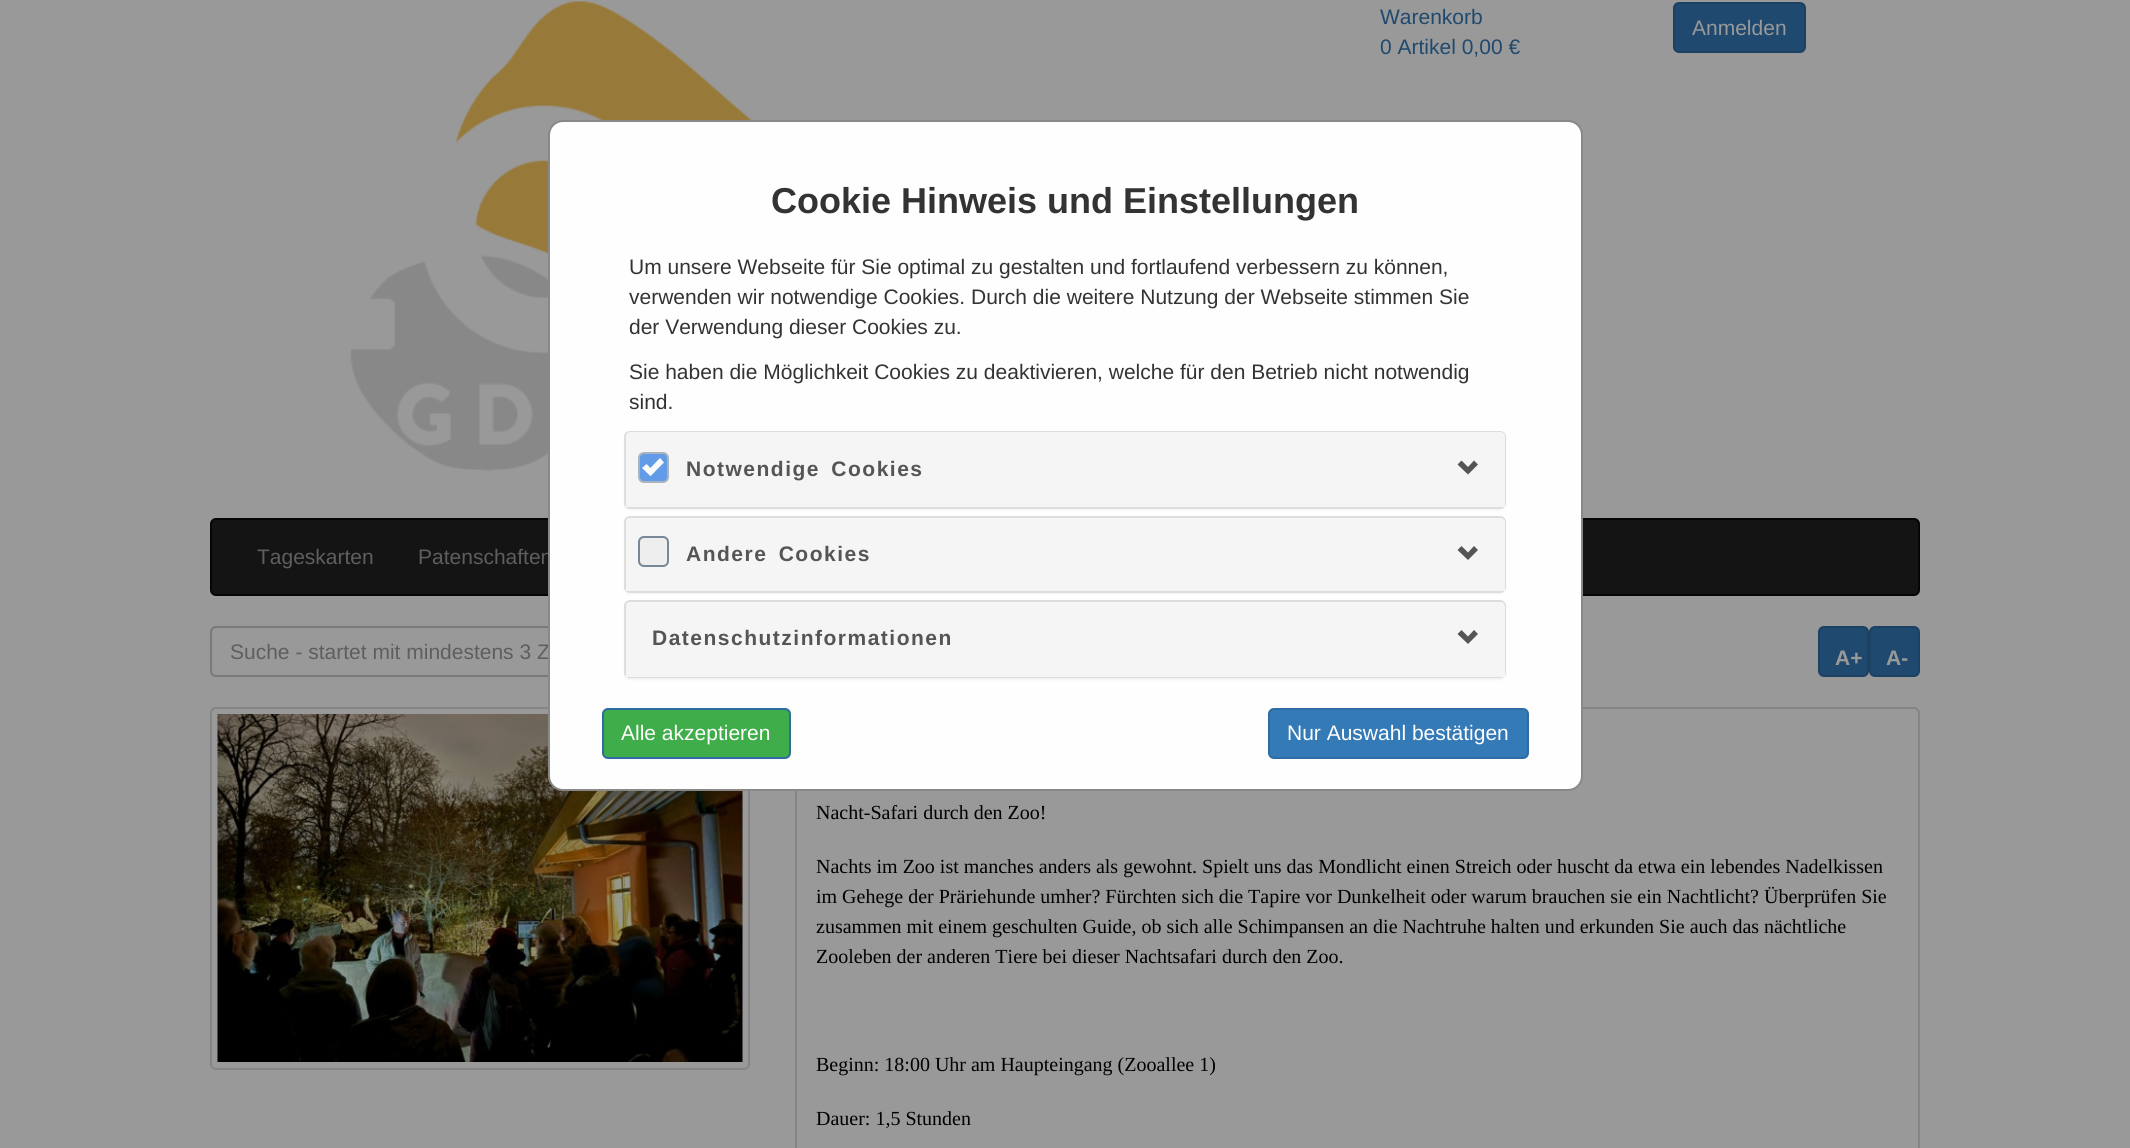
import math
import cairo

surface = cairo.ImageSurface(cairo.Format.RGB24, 2130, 1148)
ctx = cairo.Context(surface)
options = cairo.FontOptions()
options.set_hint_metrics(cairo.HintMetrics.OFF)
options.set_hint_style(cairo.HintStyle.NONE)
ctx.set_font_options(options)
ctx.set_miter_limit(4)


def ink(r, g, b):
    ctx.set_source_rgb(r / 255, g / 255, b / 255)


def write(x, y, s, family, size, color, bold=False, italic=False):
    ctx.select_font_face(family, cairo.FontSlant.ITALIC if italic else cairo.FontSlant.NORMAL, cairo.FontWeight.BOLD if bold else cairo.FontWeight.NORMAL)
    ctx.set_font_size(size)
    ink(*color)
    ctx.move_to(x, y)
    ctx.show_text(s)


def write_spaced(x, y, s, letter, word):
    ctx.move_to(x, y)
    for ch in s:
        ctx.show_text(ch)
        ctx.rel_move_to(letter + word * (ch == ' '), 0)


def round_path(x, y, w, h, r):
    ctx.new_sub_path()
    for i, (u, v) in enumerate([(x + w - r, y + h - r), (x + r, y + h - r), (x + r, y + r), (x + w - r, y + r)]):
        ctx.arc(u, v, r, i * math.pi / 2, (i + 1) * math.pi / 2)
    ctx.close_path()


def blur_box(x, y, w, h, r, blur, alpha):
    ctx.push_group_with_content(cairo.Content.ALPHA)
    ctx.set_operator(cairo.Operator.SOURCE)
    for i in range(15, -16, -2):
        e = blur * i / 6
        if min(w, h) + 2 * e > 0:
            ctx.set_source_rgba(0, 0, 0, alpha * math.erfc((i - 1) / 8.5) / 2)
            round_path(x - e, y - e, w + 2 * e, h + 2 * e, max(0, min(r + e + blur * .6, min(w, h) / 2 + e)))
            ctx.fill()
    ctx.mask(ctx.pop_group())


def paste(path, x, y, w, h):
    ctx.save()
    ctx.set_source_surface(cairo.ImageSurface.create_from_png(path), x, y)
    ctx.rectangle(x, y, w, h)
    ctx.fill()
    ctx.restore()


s1 = dict(family="Liberation Sans", size=21, color=(31, 73, 110))
s2 = dict(family="Liberation Sans", size=21, color=(153, 153, 153))
s3 = dict(family="Liberation Sans", size=21, color=(94, 94, 94))
s4 = dict(family="Liberation Sans", size=36, color=(51, 51, 51), bold=True)
s5 = dict(family="Liberation Sans", size=21, color=(51, 51, 51))
s6 = dict(family="Liberation Sans", size=21, color=(255, 255, 255))
s7 = dict(family="Liberation Sans", size=21, color=(153, 153, 153), bold=True)
s8 = dict(family="Liberation Serif", size=20, color=(0, 0, 0))

ink(153, 153, 153)
ctx.paint()
paste("pic1.png", 350, 1, 461, 471)
write(1380, 24, "Warenkorb", **s1)
write(1380, 54, "0 Artikel 0,00 €", **s1)
round_path(1674, 3, 131, 49, 5)
ctx.fill_preserve()
ink(28, 65, 98)
ctx.stroke()
write(1692, 35, "Anmelden", **s2)
ink(20, 20, 20)
round_path(211, 519, 1708, 76, 5)
ctx.fill_preserve()
ink(5, 5, 5)
ctx.stroke()
write(257, 564, "Tageskarten", **s3)
write(418, 564, "Patenschaften", **s3)
ink(142, 142, 142)
ctx.new_path()
ctx.move_to(216, 628)
ctx.line_to(1476, 628)
ctx.curve_to(1478, 628, 1480, 631, 1480, 633)
ctx.line_to(1480, 673)
ctx.curve_to(1481, 672, 1481, 671, 1481, 670)
ctx.line_to(1481, 632)
ctx.curve_to(1481, 629, 1479, 627, 1476, 627)
ctx.line_to(217, 627)
ctx.curve_to(214, 627, 212, 629, 212, 632)
ctx.line_to(212, 633)
ctx.curve_to(212, 631, 214, 628, 216, 628)
ctx.close_path()
ctx.fill()
round_path(211, 627, 1270, 49, 5)
ink(122, 122, 122)
ctx.stroke()
write(230, 659, "Suche - startet mit mindestens 3 Z", **s3)
round_path(211, 708, 538, 361, 5)
ink(133, 133, 133)
ctx.stroke()
paste("pic2.png", 217, 714, 526, 348)
round_path(796, 708, 1123, 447, 5)
ctx.stroke()
ink(254, 254, 254)
round_path(549, 121, 1033, 669, 14)
ctx.fill_preserve()
ink(136, 136, 136)
ctx.stroke()
write(771, 213, "Cookie Hinweis und Einstellungen", **s4)
write(629, 274, "Um unsere Webseite für Sie optimal zu gestalten und fortlaufend verbessern zu können,", **s5)
write(629, 304, "verwenden wir notwendige Cookies. Durch die weitere Nutzung der Webseite stimmen Sie", **s5)
write(629, 334, "der Verwendung dieser Cookies zu.", **s5)
write(629, 379, "Sie haben die Möglichkeit Cookies zu deaktivieren, welche für den Betrieb nicht notwendig", **s5)
write(629, 409, "sind.", **s5)
ink(0, 0, 0)
blur_box(624, 432, 882, 78, 6, 1, 0.05)
round_path(625, 432, 880, 76, 5)
ink(221, 221, 221)
ctx.stroke()
ink(245, 245, 245)
ctx.new_path()
ctx.move_to(631, 432)
ctx.line_to(1500, 432)
ctx.curve_to(1503, 432, 1505, 434, 1505, 437)
ctx.line_to(1505, 507)
ctx.line_to(626, 507)
ctx.line_to(626, 437)
ctx.curve_to(626, 434, 628, 432, 631, 432)
ctx.close_path()
ctx.fill()
ink(98, 156, 232)
round_path(639, 453, 29, 29, 5)
ctx.fill_preserve()
ink(169, 180, 190)
ctx.stroke()
ink(251, 251, 251)
ctx.new_path()
ctx.move_to(660, 458)
ctx.line_to(664, 462.5)
ctx.line_to(650.5, 476)
ctx.line_to(646.5, 472)
ctx.close_path()
ctx.fill()
ctx.new_path()
ctx.move_to(646.5, 464)
ctx.line_to(654.5, 472)
ctx.line_to(650.5, 476)
ctx.line_to(642, 468)
ctx.close_path()
ctx.fill()
ctx.select_font_face("Liberation Sans", cairo.FontSlant.NORMAL, cairo.FontWeight.BOLD)
ink(85, 85, 85)
write_spaced(686, 476, "Notwendige Cookies", 1.5, 4)
ctx.new_path()
ctx.move_to(1457.5, 464.5)
ctx.line_to(1468, 474.5)
ctx.line_to(1478, 464.5)
ctx.line_to(1474, 460.5)
ctx.line_to(1468, 467)
ctx.line_to(1461.5, 460.5)
ctx.close_path()
ctx.fill()
ink(0, 0, 0)
blur_box(624, 518, 882, 76, 6, 1, 0.05)
ink(255, 255, 255)
round_path(625, 517, 880, 75, 5)
ctx.fill_preserve()
ink(221, 221, 221)
ctx.stroke()
ink(245, 245, 245)
ctx.new_path()
ctx.move_to(631, 518)
ctx.line_to(1500, 518)
ctx.curve_to(1503, 518, 1505, 520, 1505, 523)
ctx.line_to(1505, 591)
ctx.line_to(626, 591)
ctx.line_to(626, 523)
ctx.curve_to(626, 520, 628, 518, 631, 518)
ctx.close_path()
ctx.fill()
ink(238, 238, 238)
round_path(639, 537, 29, 29, 5)
ctx.fill_preserve()
ink(119, 136, 153)
ctx.stroke()
ink(85, 85, 85)
write_spaced(686, 561, "Andere Cookies", 1.5, 4)
ctx.new_path()
ctx.move_to(1457.5, 550)
ctx.line_to(1468, 560)
ctx.line_to(1478, 550)
ctx.line_to(1474, 546)
ctx.line_to(1468, 552.5)
ctx.line_to(1461.5, 546)
ctx.close_path()
ctx.fill()
ink(0, 0, 0)
blur_box(624, 602, 882, 78, 6, 1, 0.05)
ink(255, 255, 255)
round_path(625, 601, 880, 76, 5)
ctx.fill_preserve()
ink(221, 221, 221)
ctx.stroke()
ink(245, 245, 245)
ctx.new_path()
ctx.move_to(631, 602)
ctx.line_to(1500, 602)
ctx.curve_to(1503, 602, 1505, 604, 1505, 607)
ctx.line_to(1505, 677)
ctx.line_to(626, 677)
ctx.line_to(626, 607)
ctx.curve_to(626, 604, 628, 602, 631, 602)
ctx.close_path()
ctx.fill()
ink(85, 85, 85)
write_spaced(652, 645, "Datenschutzinformationen", 1.5, 0)
ctx.new_path()
ctx.move_to(1457.5, 634)
ctx.line_to(1468, 644)
ctx.line_to(1478, 634)
ctx.line_to(1474, 630)
ctx.line_to(1468, 636.5)
ctx.line_to(1461.5, 630)
ctx.close_path()
ctx.fill()
ink(63, 173, 73)
round_path(603, 709, 187, 49, 5)
ctx.fill_preserve()
ink(46, 109, 164)
ctx.stroke()
write(621, 740, "Alle akzeptieren", **s6)
ink(51, 122, 183)
round_path(1269, 709, 259, 49, 5)
ctx.fill_preserve()
ink(46, 109, 164)
ctx.stroke()
write(1287, 740, "Nur Auswahl bestätigen", **s6)
ink(31, 73, 110)
round_path(1819, 627, 49, 49, 5)
ctx.fill_preserve()
ink(28, 65, 98)
ctx.stroke()
write(1835, 665, "A+", **s7)
ink(31, 73, 110)
round_path(1870, 627, 49, 49, 5)
ctx.fill_preserve()
ink(28, 65, 98)
ctx.stroke()
write(1886, 665, "A-", **s7)
write(816, 819, "Nacht-Safari durch den Zoo!", **s8)
write(816, 873, "Nachts im Zoo ist manches anders als gewohnt. Spielt uns das Mondlicht einen Streich oder huscht da etwa ein lebendes Nadelkissen", **s8)
write(816, 903, "im Gehege der Präriehunde umher? Fürchten sich die Tapire vor Dunkelheit oder warum brauchen sie ein Nachtlicht? Überprüfen Sie", **s8)
write(816, 933, "zusammen mit einem geschulten Guide, ob sich alle Schimpansen an die Nachtruhe halten und erkunden Sie auch das nächtliche", **s8)
write(816, 963, "Zooleben der anderen Tiere bei dieser Nachtsafari durch den Zoo.", **s8)
write(816, 1071, "Beginn: 18:00 Uhr am Haupteingang (Zooallee 1)", **s8)
write(816, 1125, "Dauer: 1,5 Stunden", **s8)
surface.write_to_png("screenshot.png")
